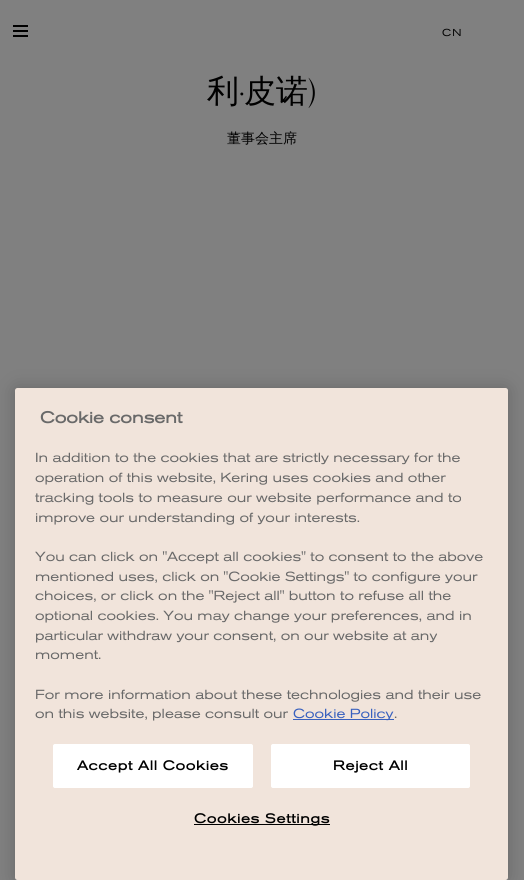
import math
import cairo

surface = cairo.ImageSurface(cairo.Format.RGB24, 524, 880)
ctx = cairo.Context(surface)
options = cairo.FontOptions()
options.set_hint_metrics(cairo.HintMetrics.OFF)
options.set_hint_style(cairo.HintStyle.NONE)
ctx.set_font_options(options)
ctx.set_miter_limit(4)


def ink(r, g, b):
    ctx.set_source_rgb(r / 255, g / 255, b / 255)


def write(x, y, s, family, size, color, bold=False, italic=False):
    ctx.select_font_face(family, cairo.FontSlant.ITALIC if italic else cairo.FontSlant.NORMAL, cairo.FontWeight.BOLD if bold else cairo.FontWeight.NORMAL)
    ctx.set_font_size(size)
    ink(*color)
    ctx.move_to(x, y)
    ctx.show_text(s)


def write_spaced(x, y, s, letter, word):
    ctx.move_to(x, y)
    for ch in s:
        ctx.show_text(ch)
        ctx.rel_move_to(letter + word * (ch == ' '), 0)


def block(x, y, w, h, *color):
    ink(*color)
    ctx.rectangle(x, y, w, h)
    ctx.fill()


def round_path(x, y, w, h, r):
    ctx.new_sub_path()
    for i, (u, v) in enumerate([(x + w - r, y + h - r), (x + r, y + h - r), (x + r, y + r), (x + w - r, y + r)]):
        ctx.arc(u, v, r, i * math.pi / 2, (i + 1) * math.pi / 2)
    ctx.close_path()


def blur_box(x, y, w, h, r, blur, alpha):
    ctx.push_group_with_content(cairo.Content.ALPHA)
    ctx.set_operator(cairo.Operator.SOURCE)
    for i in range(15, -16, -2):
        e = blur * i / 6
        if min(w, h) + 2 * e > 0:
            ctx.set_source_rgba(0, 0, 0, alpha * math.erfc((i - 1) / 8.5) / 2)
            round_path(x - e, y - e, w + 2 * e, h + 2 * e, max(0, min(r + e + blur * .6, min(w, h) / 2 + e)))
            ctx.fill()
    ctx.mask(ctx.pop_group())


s1 = dict(family="WenQuanYi Zen Hei Medium", size=32, color=(0, 0, 0))
s2 = dict(family="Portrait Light", size=32, color=(0, 0, 0))
s3 = dict(family="WenQuanYi Zen Hei Medium", size=14, color=(0, 0, 0))
s4 = dict(family="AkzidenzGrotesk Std", size=16, color=(105, 105, 105), bold=True)
s5 = dict(family="AkzidenzGrotesk Std", size=13.1, color=(105, 105, 105))
s6 = dict(family="AkzidenzGrotesk Std", size=13.1, color=(56, 96, 190))

ink(128, 128, 128)
ctx.paint()
block(13, 25, 15, 2, 0, 0, 0)
block(13, 30, 15, 2, 0, 0, 0)
block(13, 35, 15, 2, 0, 0, 0)
ctx.select_font_face("AkzidenzGrotesk Std")
ctx.set_font_size(10)
write_spaced(442, 36, "CN", 1, 0)
write(207, 102, "利", **s1)
write(239, 102, "·", **s2)
write(244, 102, "皮诺", **s1)
write(308, 102, ")", **s2)
write(227, 143, "董事会主席", **s3)
ink(0, 0, 0)
blur_box(15, 388, 493, 492, 2.5, 9, 0.2)
ink(241, 228, 219)
round_path(15, 388, 493, 492, 2.5)
ctx.fill()
write(40, 423, "Cookie consent", **s4)
write(35, 462, "In addition to the cookies that are strictly necessary for the", **s5)
write(35, 482, "operation of this website, Kering uses cookies and other", **s5)
write(35, 502, "tracking tools to measure our website performance and to", **s5)
write(35, 522, "improve our understanding of your interests.", **s5)
write(35, 561, "You can click on \"Accept all cookies\" to consent to the above", **s5)
write(35, 581, "mentioned uses, click on \"Cookie Settings\" to configure your", **s5)
write(35, 600, "choices, or click on the \"Reject all\" button to refuse all the", **s5)
write(35, 620, "optional cookies. You may change your preferences, and in", **s5)
write(35, 640, "particular withdraw your consent, on our website at any", **s5)
write(35, 659, "moment.", **s5)
write(35, 699, "For more information about these technologies and their use", **s5)
write(35, 718, "on this website, please consult our", **s5)
block(293, 719, 101, 1, 56, 96, 190)
write(293, 718, "Cookie Policy", **s6)
write(394, 718, ".", **s5)
ink(255, 255, 255)
round_path(53.5, 744.5, 199, 43, 1.5)
ctx.fill_preserve()
ctx.set_line_width(1)
ctx.stroke()
ctx.select_font_face("AkzidenzGrotesk Std", cairo.FontSlant.NORMAL, cairo.FontWeight.BOLD)
ink(0, 0, 0)
write_spaced(77, 770, "Accept All Cookies", 0.7, 0)
ink(255, 255, 255)
round_path(271.5, 744.5, 198, 43, 1.5)
ctx.fill_preserve()
ctx.stroke()
ink(0, 0, 0)
write_spaced(333, 770, "Reject All", 0.7, 0)
block(194, 824, 136, 1, 0, 0, 0)
write_spaced(194, 823, "Cookies Settings", 0.7, 0)
surface.write_to_png("screenshot.png")
